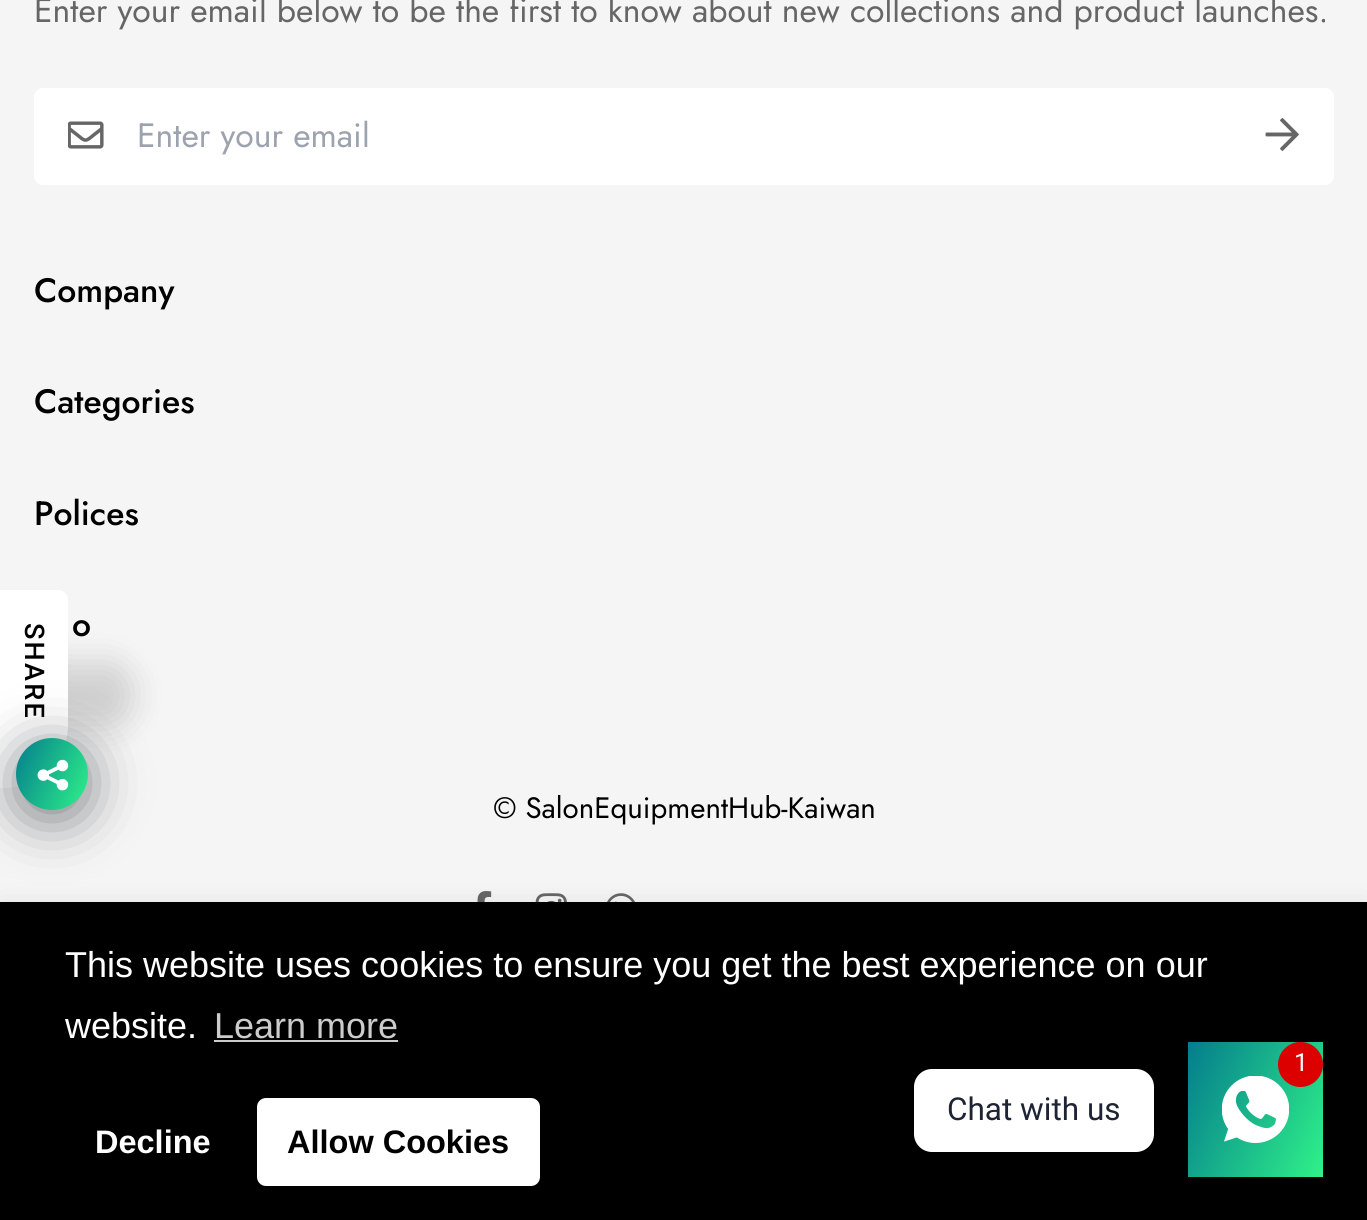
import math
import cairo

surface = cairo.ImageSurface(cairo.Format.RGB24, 1367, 1220)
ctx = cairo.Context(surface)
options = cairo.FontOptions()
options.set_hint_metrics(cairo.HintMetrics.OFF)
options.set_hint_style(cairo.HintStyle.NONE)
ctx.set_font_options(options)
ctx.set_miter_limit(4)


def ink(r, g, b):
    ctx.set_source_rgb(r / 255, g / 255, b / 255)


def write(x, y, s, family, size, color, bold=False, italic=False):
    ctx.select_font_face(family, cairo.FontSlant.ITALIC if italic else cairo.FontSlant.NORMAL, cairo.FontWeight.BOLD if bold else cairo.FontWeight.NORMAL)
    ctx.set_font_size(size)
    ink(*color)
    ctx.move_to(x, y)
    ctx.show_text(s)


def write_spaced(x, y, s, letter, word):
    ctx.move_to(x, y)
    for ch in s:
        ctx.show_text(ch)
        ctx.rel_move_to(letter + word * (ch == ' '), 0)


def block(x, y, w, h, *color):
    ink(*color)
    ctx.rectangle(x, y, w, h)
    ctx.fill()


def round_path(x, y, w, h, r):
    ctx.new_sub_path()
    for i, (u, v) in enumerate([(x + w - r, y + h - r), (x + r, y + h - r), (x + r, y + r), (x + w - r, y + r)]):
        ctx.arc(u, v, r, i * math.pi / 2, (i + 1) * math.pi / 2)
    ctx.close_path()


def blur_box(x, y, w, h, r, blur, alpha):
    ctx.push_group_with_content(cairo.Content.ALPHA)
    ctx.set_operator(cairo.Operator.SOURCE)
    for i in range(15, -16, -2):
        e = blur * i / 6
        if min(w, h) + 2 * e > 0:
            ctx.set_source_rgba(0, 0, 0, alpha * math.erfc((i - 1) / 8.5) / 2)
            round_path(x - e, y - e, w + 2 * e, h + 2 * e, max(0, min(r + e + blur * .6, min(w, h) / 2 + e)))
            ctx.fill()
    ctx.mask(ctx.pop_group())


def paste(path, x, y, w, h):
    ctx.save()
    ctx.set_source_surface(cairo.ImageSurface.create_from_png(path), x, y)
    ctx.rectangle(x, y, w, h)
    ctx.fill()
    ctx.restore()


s1 = dict(family="Jost", size=33.75, color=(102, 102, 102))
s2 = dict(family="Jost", size=33.75, color=(156, 163, 175))
s3 = dict(family="Jost Medium", size=33.75, color=(0, 0, 0))
s4 = dict(family="Jost", size=29.5, color=(0, 0, 0))
s5 = dict(family="Roboto", size=25, color=(255, 255, 255))
s6 = dict(family="Roboto", size=31.5, color=(30, 36, 51))
s7 = dict(family="Liberation Sans", size=36, color=(255, 255, 255))
s8 = dict(family="Liberation Sans", size=36, color=(204, 204, 204))
s9 = dict(family="Liberation Sans", size=32.5, color=(255, 255, 255), bold=True)
s10 = dict(family="Liberation Sans", size=32.5, color=(0, 0, 0), bold=True)

ink(245, 245, 245)
ctx.paint()
write(34, 22, "Enter your email below to be the first to know about new collections and product launches.", **s1)
ink(255, 255, 255)
round_path(34, 88, 1300, 97, 9)
ctx.fill()
paste("pic1.png", 68, 121, 36, 28)
write(137, 147, "Enter your email", **s2)
paste("pic2.png", 1265, 118, 34, 33)
write(34, 302, "Company", **s3)
write(34, 413, "Categories", **s3)
write(34, 525, "Polices", **s3)
write(72, 636, "o", **s3)
write(493, 818, "© SalonEquipmentHub-Kaiwan", **s4)
paste("pic3.png", 477, 891, 15, 11)
paste("pic4.png", 535, 893, 32, 9)
paste("pic5.png", 607, 893, 28, 9)
ink(0, 0, 0)
blur_box(-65, 662, 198, 67, 63, 16, 0.15)
ink(255, 255, 255)
ctx.new_path()
ctx.move_to(0, 788)
ctx.line_to(0, 590)
ctx.line_to(58, 590)
ctx.curve_to(63, 590, 68, 594, 68, 599)
ctx.line_to(68, 725)
ctx.curve_to(68, 760, 39, 788, 4, 788)
ctx.close_path()
ctx.fill()
ctx.select_font_face("Roboto Medium")
ctx.set_font_size(27)
ink(0, 0, 0)
ctx.save()
ctx.translate(25, 623)
ctx.rotate(90 * math.pi / 180)
write_spaced(0, 0, "SHARE", 2.25, 0)
ctx.restore()
ink(2, 6, 16)
blur_box(16, 747, 72, 72, 36, 27, 0.5)
gradient = cairo.LinearGradient(8, 754, 95, 794)
gradient.add_color_stop_rgba(0, 0.016, 0.486, 0.553, 1)
gradient.add_color_stop_rgba(1, 0.184, 0.949, 0.537, 1)
ctx.set_source(gradient)
ctx.arc(52, 774, 36, 0, 2 * math.pi)
ctx.fill()
paste("pic6.png", 37, 759, 32, 32)
ink(0, 0, 0)
blur_box(0, 914, 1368, 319, 0, 17, 0.15)
block(0, 902, 1367, 318, 0, 0, 0)
gradient = cairo.LinearGradient(1174, 1071, 1337, 1147)
gradient.add_color_stop_rgba(0, 0.016, 0.486, 0.553, 1)
gradient.add_color_stop_rgba(1, 0.184, 0.949, 0.537, 1)
ctx.set_source(gradient)
ctx.rectangle(1188, 1042, 135, 135)
ctx.fill()
paste("pic7.png", 1222, 1076, 67, 67)
ink(221, 0, 0)
ctx.arc(1300.5, 1064.5, 22.5, 0, 2 * math.pi)
ctx.fill()
write(1294, 1071, "1", **s5)
round_path(914, 1069, 240, 83, 18)
ctx.fill()
write(947, 1120, "Chat with us", **s6)
write(65, 977, "This website uses cookies to ensure you get the best experience on our", **s7)
write(65, 1038, "website.", **s7)
write(214, 1038, "Learn more", **s8)
block(214, 1040, 184, 2, 204, 204, 204)
write(95, 1153, "Decline", **s9)
round_path(257, 1098, 283, 88, 9)
ctx.fill()
write(287, 1153, "Allow Cookies", **s10)
surface.write_to_png("screenshot.png")
